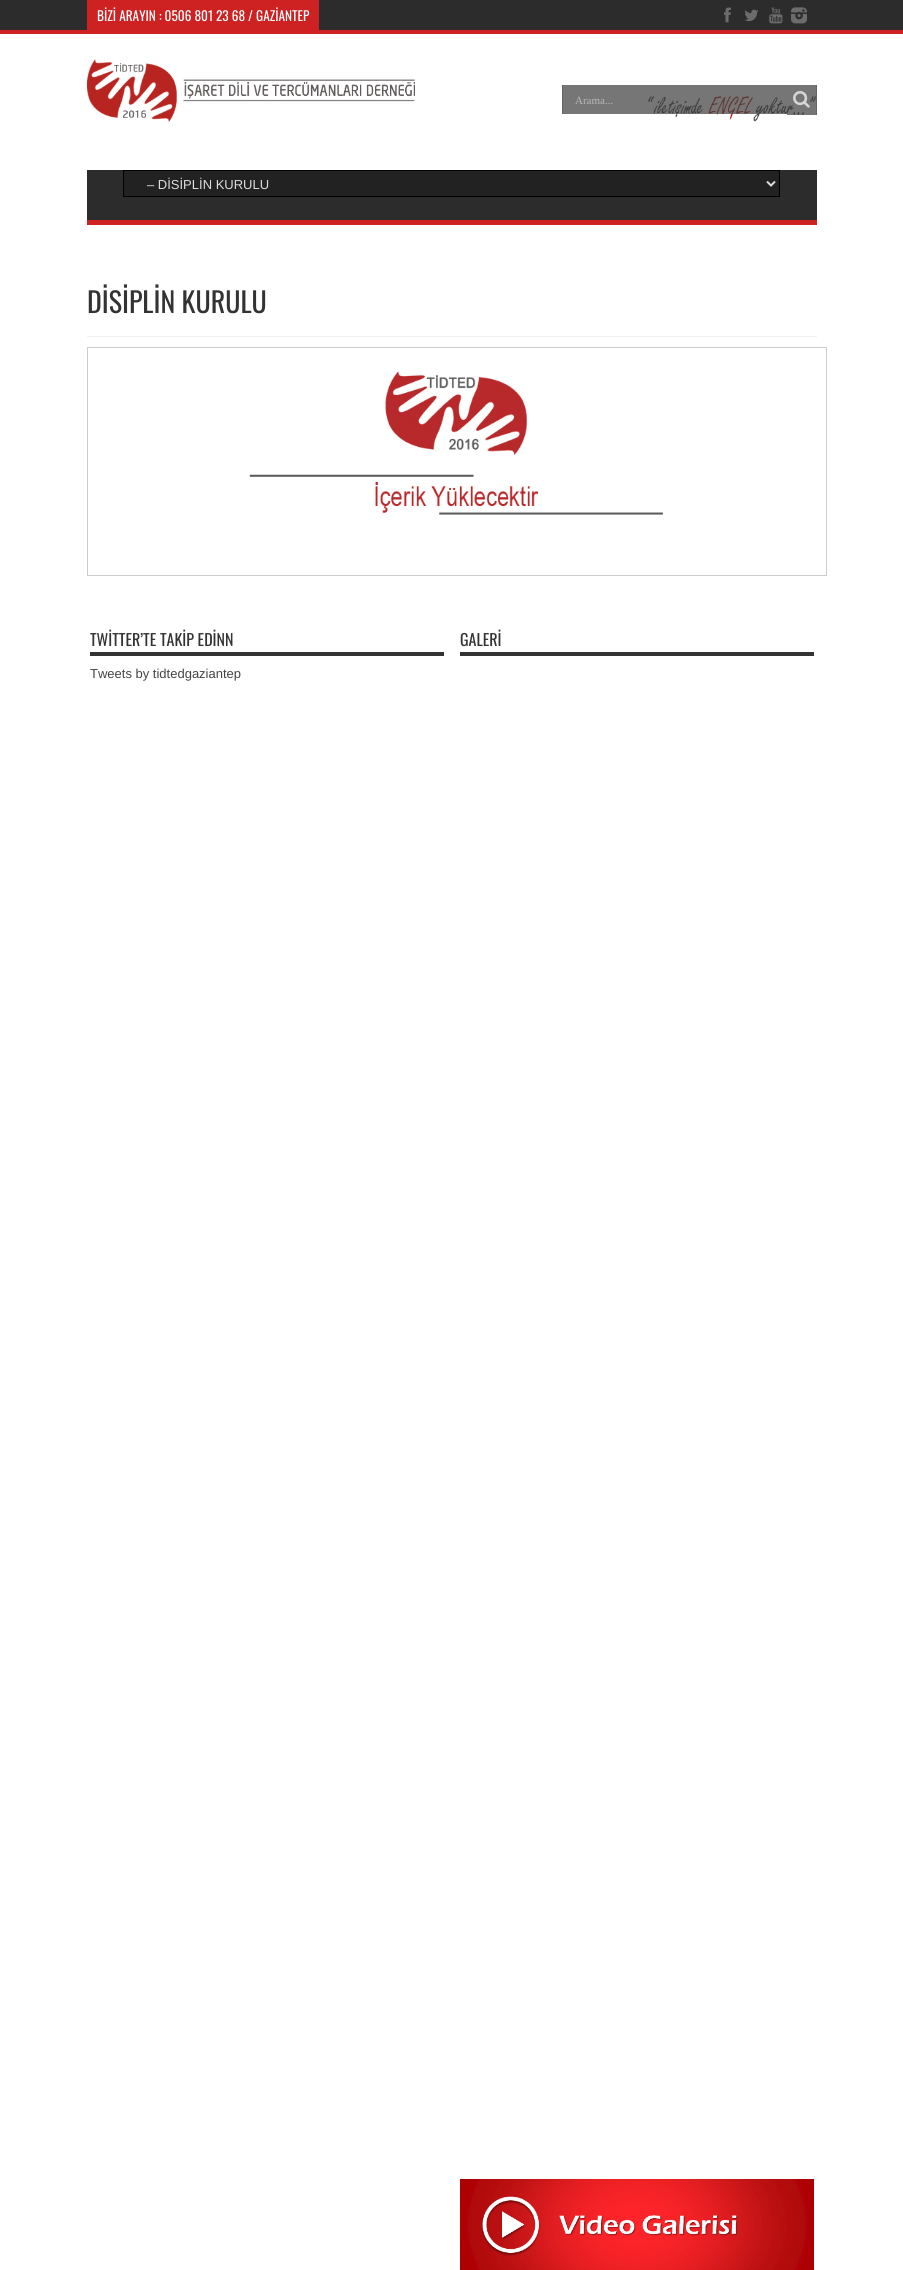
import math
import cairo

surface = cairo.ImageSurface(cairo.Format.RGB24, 903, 2270)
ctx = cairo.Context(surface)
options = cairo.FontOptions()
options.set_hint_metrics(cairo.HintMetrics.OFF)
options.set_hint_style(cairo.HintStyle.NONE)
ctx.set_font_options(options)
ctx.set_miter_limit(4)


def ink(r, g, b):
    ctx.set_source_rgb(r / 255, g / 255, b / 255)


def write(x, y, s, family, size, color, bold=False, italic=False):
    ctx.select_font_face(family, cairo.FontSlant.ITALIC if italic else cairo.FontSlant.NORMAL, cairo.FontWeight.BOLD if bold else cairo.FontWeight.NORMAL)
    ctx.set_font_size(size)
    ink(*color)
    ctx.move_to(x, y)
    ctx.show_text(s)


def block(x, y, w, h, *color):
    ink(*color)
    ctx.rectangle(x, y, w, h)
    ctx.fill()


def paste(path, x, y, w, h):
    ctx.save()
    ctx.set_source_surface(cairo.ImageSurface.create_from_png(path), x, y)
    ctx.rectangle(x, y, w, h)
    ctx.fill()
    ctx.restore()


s1 = dict(family="Oswald", size=13.3, color=(255, 255, 255))
s2 = dict(family="Liberation Serif", size=11, color=(184, 184, 184))
s3 = dict(family="Liberation Sans", size=13, color=(221, 221, 221))
s4 = dict(family="Oswald", size=28, color=(51, 51, 51))
s5 = dict(family="Oswald", size=16, color=(51, 51, 51))
s6 = dict(family="Liberation Sans", size=13, color=(68, 68, 68))

ink(255, 255, 255)
ctx.paint()
block(0, 0, 903, 30, 44, 44, 44)
block(0, 30, 903, 4, 205, 33, 34)
block(87, 0, 232, 30, 205, 33, 34)
write(97, 21, "BİZİ ARAYIN : 0506 801 23 68 / GAZİANTEP", **s1)
paste("pic1.png", 724, 7, 7, 16)
paste("pic2.png", 744, 9, 15, 13)
paste("pic3.png", 769, 7, 14, 17)
paste("pic4.png", 791, 7, 16, 17)
paste("pic6.png", 87, 59, 729, 63)
ctx.set_source_rgba(0.235, 0.235, 0.235, 0.7)
ctx.rectangle(563, 85, 224, 29)
ctx.fill()
block(562, 85, 1, 29, 100, 100, 100)
write(575, 104, "Arama...", **s2)
ctx.set_source_rgba(0.235, 0.235, 0.235, 0.7)
ctx.rectangle(787, 85, 29, 30)
ctx.fill()
block(816, 85, 1, 30, 100, 100, 100)
paste("pic5.png", 793, 91, 17, 17)
block(87, 170, 730, 50, 44, 44, 44)
block(87, 220, 730, 5, 205, 33, 34)
ink(34, 34, 34)
ctx.rectangle(123.5, 170.5, 656, 26)
ctx.fill_preserve()
ink(0, 0, 0)
ctx.set_line_width(1)
ctx.stroke()
ctx.new_path()
ctx.move_to(767, 181.5)
ctx.line_to(771, 185.5)
ctx.line_to(775, 181.5)
ink(221, 221, 221)
ctx.set_line_width(2)
ctx.stroke()
write(147, 189, "– DİSİPLİN KURULU", **s3)
write(87, 313, "DİSİPLİN KURULU", **s4)
block(87, 336, 730, 1, 242, 242, 242)
ctx.rectangle(87.5, 347.5, 739, 228)
ink(203, 205, 204)
ctx.set_line_width(1)
ctx.stroke()
paste("pic7.png", 249, 371, 414, 144)
block(90, 652, 354, 4, 51, 51, 51)
write(90, 646, "TWİTTER’TE TAKİP EDİNN", **s5)
write(90, 678, "Tweets by tidtedgaziantep", **s6)
block(460, 652, 354, 4, 51, 51, 51)
write(460, 646, "GALERİ", **s5)
paste("pic8.png", 460, 2179, 354, 91)
surface.write_to_png("screenshot.png")
